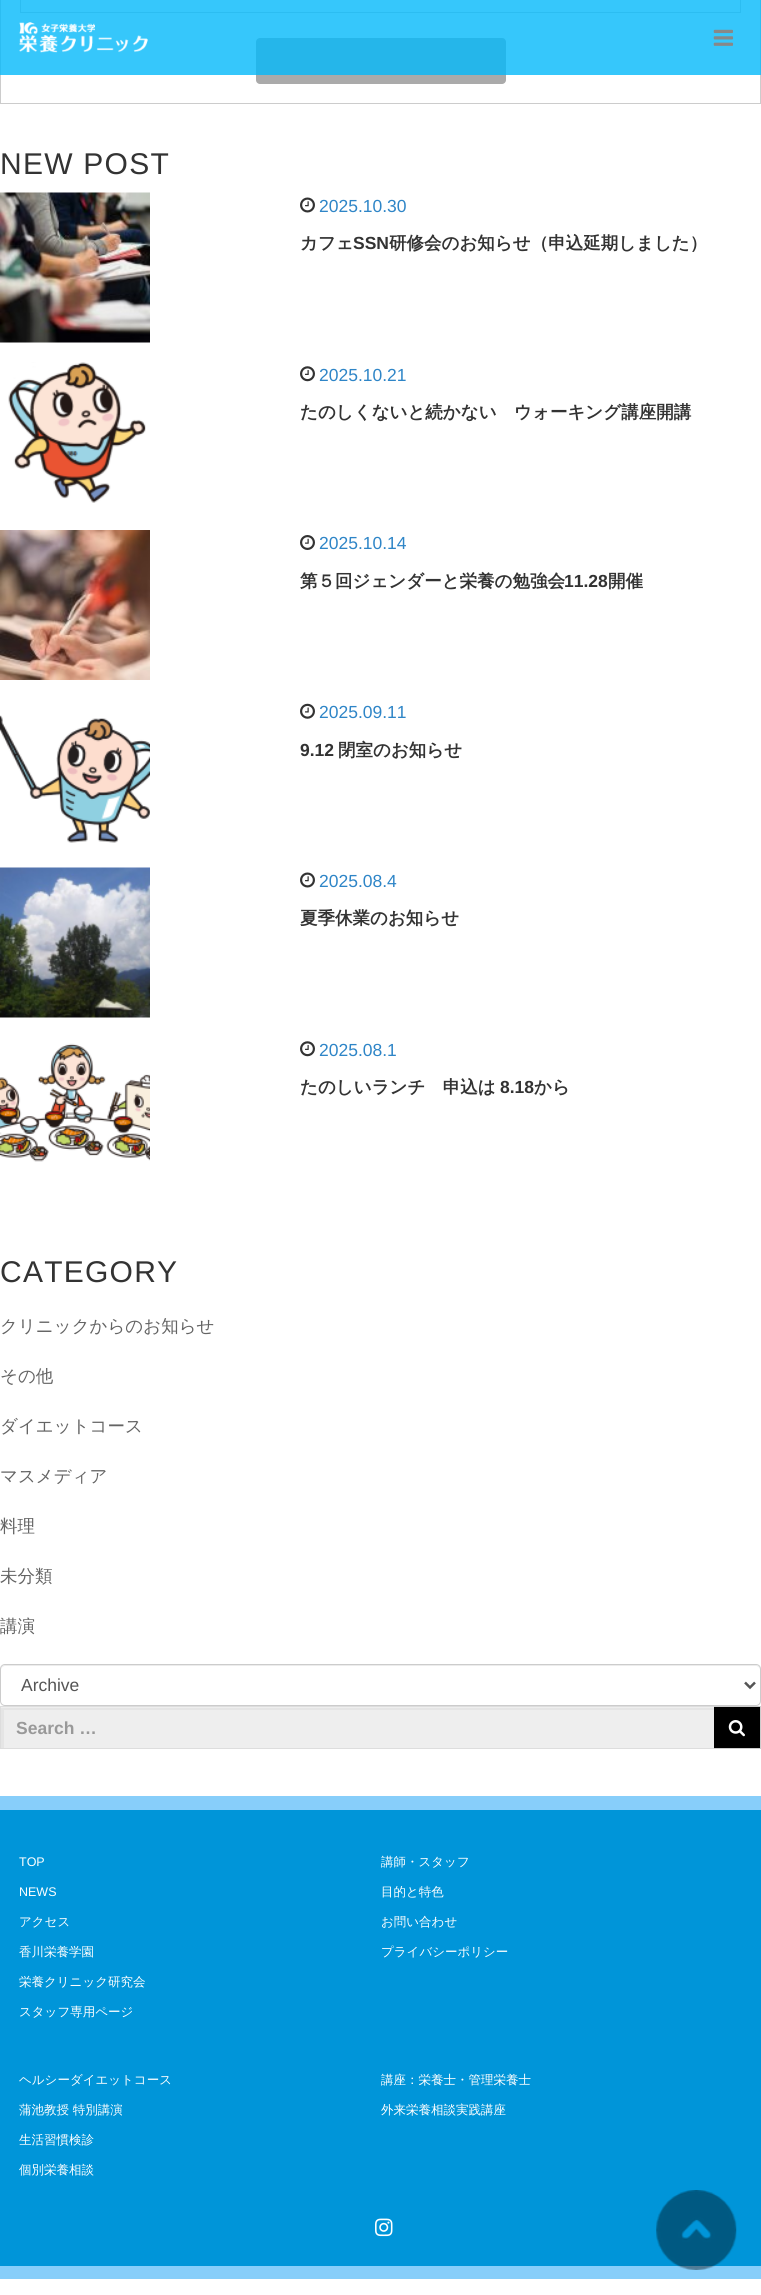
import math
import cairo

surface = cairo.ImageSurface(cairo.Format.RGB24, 761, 2295)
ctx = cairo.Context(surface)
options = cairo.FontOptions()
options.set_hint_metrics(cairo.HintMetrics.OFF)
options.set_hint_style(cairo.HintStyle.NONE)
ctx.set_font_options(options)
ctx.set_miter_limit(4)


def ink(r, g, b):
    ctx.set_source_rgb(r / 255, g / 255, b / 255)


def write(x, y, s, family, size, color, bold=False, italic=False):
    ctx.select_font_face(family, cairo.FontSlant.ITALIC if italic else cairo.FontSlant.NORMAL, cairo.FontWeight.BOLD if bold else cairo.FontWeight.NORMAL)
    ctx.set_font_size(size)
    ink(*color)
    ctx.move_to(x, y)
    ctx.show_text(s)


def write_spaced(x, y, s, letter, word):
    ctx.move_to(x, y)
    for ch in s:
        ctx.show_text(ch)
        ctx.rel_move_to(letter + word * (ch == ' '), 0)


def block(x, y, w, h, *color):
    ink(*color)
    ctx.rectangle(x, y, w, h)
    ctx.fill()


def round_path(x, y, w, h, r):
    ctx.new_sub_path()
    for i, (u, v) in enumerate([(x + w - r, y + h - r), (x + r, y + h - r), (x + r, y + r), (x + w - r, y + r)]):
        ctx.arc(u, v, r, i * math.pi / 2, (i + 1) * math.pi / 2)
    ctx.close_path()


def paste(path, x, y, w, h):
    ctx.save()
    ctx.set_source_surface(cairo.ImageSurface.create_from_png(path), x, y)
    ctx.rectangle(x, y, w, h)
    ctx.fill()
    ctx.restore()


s1 = dict(family="Liberation Sans", size=17.5, color=(46, 133, 199))
s2 = dict(family="WenQuanYi Zen Hei", size=17.5, color=(51, 51, 51), bold=True)
s3 = dict(family="Liberation Sans", size=17.5, color=(51, 51, 51), bold=True)
s4 = dict(family="WenQuanYi Zen Hei Medium", size=17.5, color=(100, 100, 100))
s5 = dict(family="Liberation Sans", size=17.5, color=(85, 85, 85))
s6 = dict(family="Liberation Sans", size=17.5, color=(153, 153, 153), bold=True)
s7 = dict(family="Liberation Sans", size=12.5, color=(255, 255, 255))
s8 = dict(family="WenQuanYi Zen Hei Medium", size=12.5, color=(255, 255, 255))

ink(255, 255, 255)
ctx.paint()
ctx.rectangle(0.5, -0.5, 760, 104)
ink(204, 204, 204)
ctx.set_line_width(1)
ctx.stroke()
ctx.rectangle(20.5, -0.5, 720, 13)
ctx.stroke()
ink(170, 170, 170)
round_path(256, 38, 250, 46, 4)
ctx.fill()
ctx.set_source_rgba(0.016, 0.725, 0.98, 0.8)
ctx.rectangle(0, 0, 761, 75)
ctx.fill()
paste("pic1.png", 19, 22, 129, 31)
paste("pic2.png", 713, 29, 21, 17)
ctx.select_font_face("Liberation Sans")
ctx.set_font_size(30)
ink(51, 51, 51)
write_spaced(0, 174, "NEW POST", 1.25, 0)
paste("pic3.png", 0, 192, 150, 151)
paste("pic4.png", 300, 197, 15, 16)
write(319, 212, "2025.10.30", **s1)
write(300, 249, "カフェ", **s2)
write(353, 249, "SSN", **s3)
write(389, 249, "研修会のお知らせ（申込延期しました）", **s2)
paste("pic5.png", 8, 362, 138, 141)
paste("pic6.png", 300, 366, 15, 16)
write(319, 381, "2025.10.21", **s1)
write(300, 418, "たのしくないと続かない　ウォーキング講座開講", **s2)
paste("pic7.png", 0, 530, 150, 150)
paste("pic8.png", 300, 535, 15, 15)
write(319, 549, "2025.10.14", **s1)
write(300, 587, "第５回ジェンダーと栄養の勉強会", **s2)
write(564, 587, "11.28", **s3)
write(608, 587, "開催", **s2)
paste("pic9.png", 0, 715, 150, 128)
paste("pic10.png", 300, 703, 15, 16)
write(319, 718, "2025.09.11", **s1)
write(300, 756, "9.12", **s3)
write(338, 756, "閉室のお知らせ", **s2)
paste("pic11.png", 0, 867, 150, 151)
paste("pic4.png", 300, 872, 15, 16)
write(319, 887, "2025.08.4", **s1)
write(300, 924, "夏季休業のお知らせ", **s2)
paste("pic12.png", 0, 1043, 150, 119)
paste("pic6.png", 300, 1041, 15, 16)
write(319, 1056, "2025.08.1", **s1)
write(300, 1093, "たのしいランチ　申込は", **s2)
write(500, 1093, "8.18", **s3)
write(534, 1093, "から", **s2)
ctx.select_font_face("Liberation Sans")
ctx.set_font_size(30)
write_spaced(0, 1282, "CATEGORY", 1.25, 0)
write(0, 1332, "クリニックからのお知らせ", **s4)
write(0, 1382, "その他", **s4)
write(0, 1432, "ダイエットコース", **s4)
write(0, 1482, "マスメディア", **s4)
write(0, 1532, "料理", **s4)
write(0, 1582, "未分類", **s4)
write(0, 1632, "講演", **s4)
ink(236, 236, 236)
ctx.new_path()
ctx.move_to(5, 1666)
ctx.line_to(756, 1666)
ctx.curve_to(758, 1666, 760, 1668, 760, 1670)
ctx.line_to(760, 1669)
ctx.curve_to(760, 1667, 758, 1665, 756, 1665)
ctx.line_to(5, 1665)
ctx.curve_to(3, 1665, 1, 1667, 1, 1669)
ctx.line_to(1, 1670)
ctx.curve_to(1, 1668, 3, 1666, 5, 1666)
ctx.close_path()
ctx.fill()
round_path(0.5, 1664.5, 760, 41, 4.5)
ink(204, 204, 204)
ctx.stroke()
ctx.new_path()
ctx.move_to(745, 1682.5)
ctx.line_to(750, 1687.5)
ctx.line_to(755, 1682.5)
ink(85, 85, 85)
ctx.set_line_width(2.5)
ctx.stroke()
write(21, 1691, "Archive", **s5)
block(1, 1707, 713, 41, 238, 238, 238)
ctx.save()
ctx.rectangle(1, 1708, 714, 40)
ctx.clip()
ink(229, 229, 229)
ctx.set_fill_rule(cairo.FillRule.EVEN_ODD)
ctx.new_path()
ctx.move_to(-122, 1584)
ctx.line_to(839, 1584)
ctx.line_to(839, 1871)
ctx.line_to(-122, 1871)
ctx.close_path()
ctx.move_to(4, 1710)
ctx.line_to(718, 1710)
ctx.line_to(718, 1750)
ctx.line_to(4, 1750)
ctx.close_path()
ctx.fill()
ctx.restore()
block(0, 1706, 715, 1, 221, 221, 221)
block(0, 1748, 715, 1, 221, 221, 221)
block(0, 1706, 1, 43, 221, 221, 221)
write(16, 1734, "Search …", **s6)
block(714, 1707, 46, 41, 0, 0, 0)
block(714, 1706, 47, 1, 204, 204, 204)
block(760, 1706, 1, 43, 204, 204, 204)
block(714, 1748, 47, 1, 204, 204, 204)
paste("pic13.png", 728, 1720, 17, 17)
block(0, 1796, 761, 483, 135, 206, 250)
block(0, 1810, 761, 456, 0, 149, 217)
write(19, 1866, "TOP", **s7)
write(19, 1896, "NEWS", **s7)
write(19, 1926, "アクセス", **s8)
write(19, 1956, "香川栄養学園", **s8)
write(19, 1986, "栄養クリニック研究会", **s8)
write(19, 2016, "スタッフ専用ページ", **s8)
write(381, 1866, "講師・スタッフ", **s8)
write(381, 1896, "目的と特色", **s8)
write(381, 1926, "お問い合わせ", **s8)
write(381, 1956, "プライバシーポリシー", **s8)
write(19, 2084, "ヘルシーダイエットコース", **s8)
write(19, 2114, "蒲池教授 特別講演", **s8)
write(19, 2144, "生活習慣検診", **s8)
write(19, 2174, "個別栄養相談", **s8)
write(381, 2084, "講座：栄養士・管理栄養士", **s8)
write(381, 2114, "外来栄養相談実践講座", **s8)
paste("pic14.png", 375, 2218, 18, 19)
paste("pic15.png", 656, 2190, 81, 80)
surface.write_to_png("screenshot.png")
